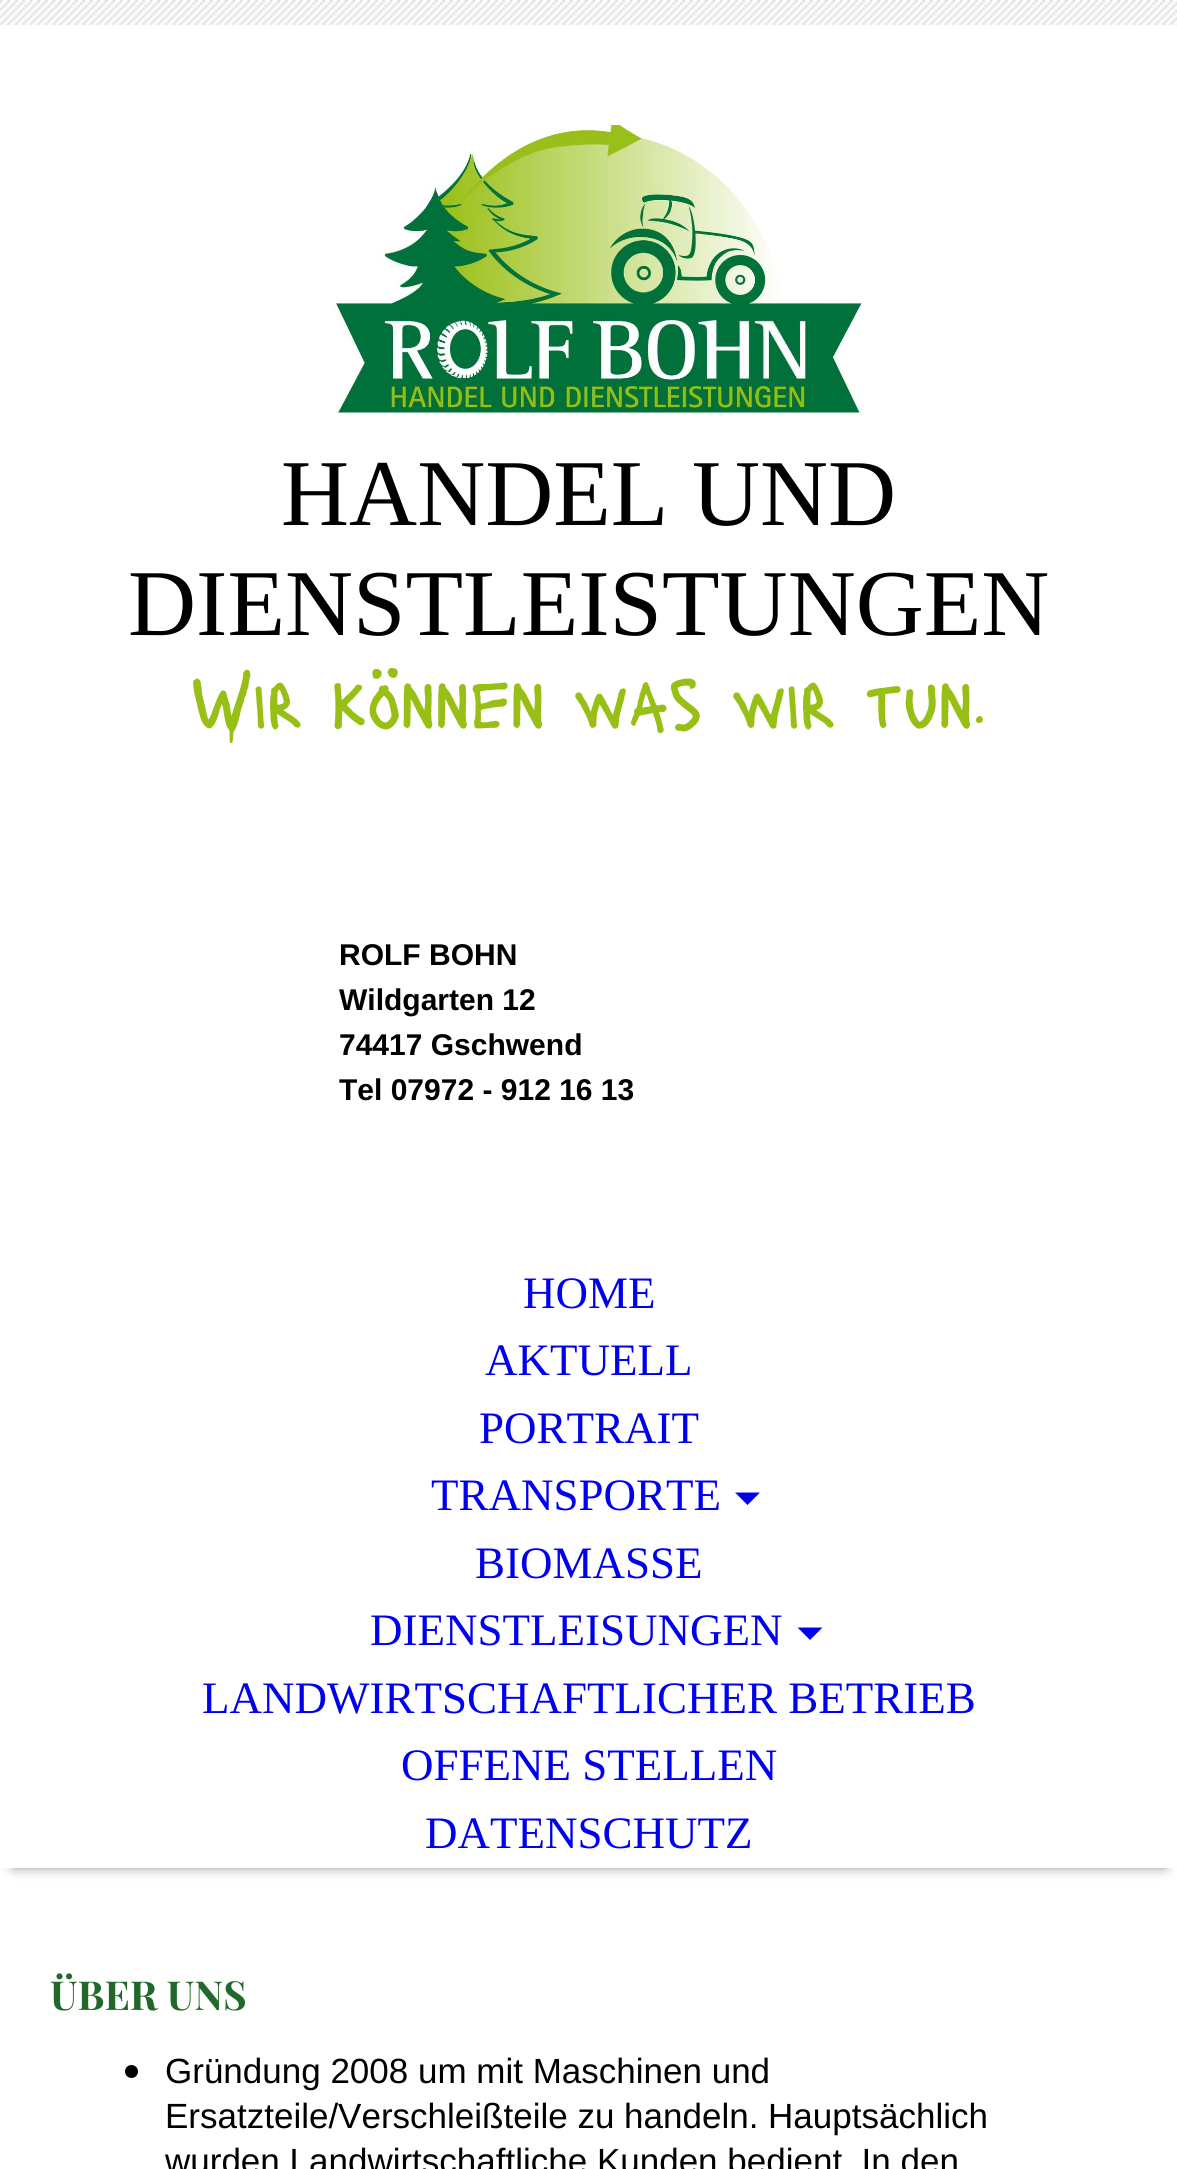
import math
import cairo

surface = cairo.ImageSurface(cairo.Format.RGB24, 1177, 2169)
ctx = cairo.Context(surface)
options = cairo.FontOptions()
options.set_hint_metrics(cairo.HintMetrics.OFF)
options.set_hint_style(cairo.HintStyle.NONE)
ctx.set_font_options(options)
ctx.set_miter_limit(4)


def ink(r, g, b):
    ctx.set_source_rgb(r / 255, g / 255, b / 255)


def write(x, y, s, family, size, color, bold=False, italic=False):
    ctx.select_font_face(family, cairo.FontSlant.ITALIC if italic else cairo.FontSlant.NORMAL, cairo.FontWeight.BOLD if bold else cairo.FontWeight.NORMAL)
    ctx.set_font_size(size)
    ink(*color)
    ctx.move_to(x, y)
    ctx.show_text(s)


def round_path(x, y, w, h, r):
    ctx.new_sub_path()
    for i, (u, v) in enumerate([(x + w - r, y + h - r), (x + r, y + h - r), (x + r, y + r), (x + w - r, y + r)]):
        ctx.arc(u, v, r, i * math.pi / 2, (i + 1) * math.pi / 2)
    ctx.close_path()


def blur_box(x, y, w, h, r, blur, alpha):
    ctx.push_group_with_content(cairo.Content.ALPHA)
    ctx.set_operator(cairo.Operator.SOURCE)
    for i in range(15, -16, -2):
        e = blur * i / 6
        if min(w, h) + 2 * e > 0:
            ctx.set_source_rgba(0, 0, 0, alpha * math.erfc((i - 1) / 8.5) / 2)
            round_path(x - e, y - e, w + 2 * e, h + 2 * e, max(0, min(r + e + blur * .6, min(w, h) / 2 + e)))
            ctx.fill()
    ctx.mask(ctx.pop_group())


def paste(path, x, y, w, h):
    ctx.save()
    ctx.set_source_surface(cairo.ImageSurface.create_from_png(path), x, y)
    ctx.rectangle(x, y, w, h)
    ctx.fill()
    ctx.restore()


s1 = dict(family="Liberation Serif", size=94.25, color=(0, 0, 0))
s2 = dict(family="Lacquer", size=70.6, color=(151, 191, 22))
s3 = dict(family="Liberation Sans", size=30, color=(0, 0, 0), bold=True)
s4 = dict(family="Liberation Serif", size=45, color=(0, 0, 238))
s5 = dict(family="Playfair Display", size=40, color=(34, 104, 42), bold=True)
s6 = dict(family="Liberation Sans", size=35, color=(0, 0, 0))

ink(255, 255, 255)
ctx.paint()
paste("pic1.png", 0, 0, 1177, 25)
paste("pic2.png", 333, 125, 532, 288)
write(281, 525, "HANDEL UND", **s1)
write(128, 635, "DIENSTLEISTUNGEN", **s1)
write(191, 728, "Wir können was wir tun.", **s2)
write(339, 965, "ROLF BOHN", **s3)
write(339, 1010, "Wildgarten 12", **s3)
write(339, 1055, "74417 Gschwend", **s3)
write(339, 1100, "Tel 07972 - 912 16 13", **s3)
ctx.save()
ctx.set_fill_rule(cairo.FillRule.EVEN_ODD)
ctx.new_path()
ctx.move_to(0, 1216)
ctx.line_to(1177, 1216)
ctx.line_to(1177, 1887)
ctx.line_to(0, 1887)
ctx.close_path()
ctx.move_to(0, 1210)
ctx.line_to(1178, 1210)
ctx.line_to(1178, 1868)
ctx.line_to(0, 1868)
ctx.close_path()
ctx.clip()
ink(0, 0, 0)
blur_box(13, 1235, 1152, 633, 0, 6, 0.4)
ctx.restore()
write(523, 1308, "HOME", **s4)
write(485, 1375, "AKTUELL", **s4)
write(479, 1443, "PORTRAIT", **s4)
write(431, 1510, "TRANSPORTE", **s4)
ctx.new_path()
ctx.move_to(735, 1492.5)
ctx.line_to(760, 1492.5)
ctx.line_to(747.5, 1505)
ctx.close_path()
ctx.fill()
write(475, 1578, "BIOMASSE", **s4)
write(370, 1645, "DIENSTLEISUNGEN", **s4)
ctx.new_path()
ctx.move_to(797.5, 1627.5)
ctx.line_to(822.5, 1627.5)
ctx.line_to(810, 1640)
ctx.close_path()
ctx.fill()
write(202, 1713, "LANDWIRTSCHAFTLICHER BETRIEB", **s4)
write(401, 1780, "OFFENE STELLEN", **s4)
write(425, 1848, "DATENSCHUTZ", **s4)
write(50, 2010, "ÜBER UNS", **s5)
ink(0, 0, 0)
ctx.new_path()
ctx.arc(131.5, 2071.5, 6.5, 0, 2 * math.pi)
ctx.fill()
write(165, 2083, "Gründung 2008 um mit Maschinen und", **s6)
write(165, 2128, "Ersatzteile/Verschleißteile zu handeln. Hauptsächlich", **s6)
write(165, 2173, "wurden Landwirtschaftliche Kunden bedient. In den", **s6)
surface.write_to_png("screenshot.png")
